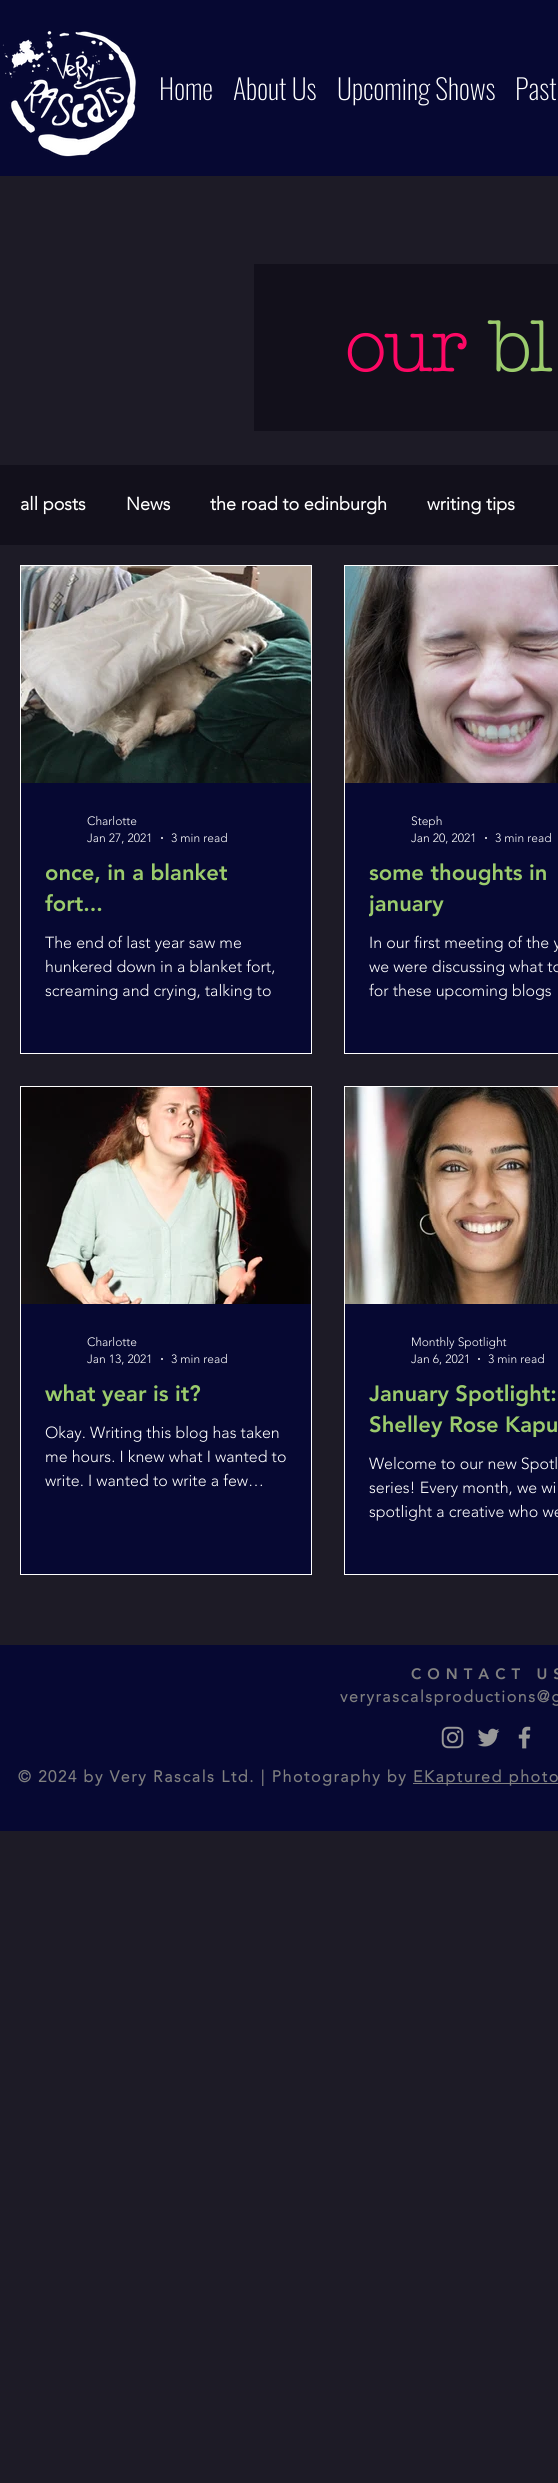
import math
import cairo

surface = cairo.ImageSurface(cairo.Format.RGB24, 558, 2483)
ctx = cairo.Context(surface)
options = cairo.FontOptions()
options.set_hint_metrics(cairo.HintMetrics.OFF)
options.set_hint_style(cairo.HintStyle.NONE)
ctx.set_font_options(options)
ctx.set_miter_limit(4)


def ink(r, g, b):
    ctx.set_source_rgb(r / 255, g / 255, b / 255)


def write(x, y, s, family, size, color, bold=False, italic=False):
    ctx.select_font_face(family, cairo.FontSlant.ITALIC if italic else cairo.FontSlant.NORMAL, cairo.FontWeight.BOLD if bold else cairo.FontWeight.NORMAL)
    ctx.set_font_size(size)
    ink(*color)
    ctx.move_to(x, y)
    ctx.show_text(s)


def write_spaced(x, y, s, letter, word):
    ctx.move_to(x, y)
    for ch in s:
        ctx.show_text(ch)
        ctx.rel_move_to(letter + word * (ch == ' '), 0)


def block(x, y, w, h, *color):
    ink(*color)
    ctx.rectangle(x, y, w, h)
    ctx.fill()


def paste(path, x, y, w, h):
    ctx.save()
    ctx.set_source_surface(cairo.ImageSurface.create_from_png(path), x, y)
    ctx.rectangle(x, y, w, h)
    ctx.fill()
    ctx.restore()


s1 = dict(family="Oswald ExtraLight", size=28, color=(255, 255, 255))
s2 = dict(family="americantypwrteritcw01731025", size=70, color=(254, 8, 101), bold=True)
s3 = dict(family="americantypwrteritcw01731025", size=70, color=(155, 203, 108), bold=True)
s4 = dict(family="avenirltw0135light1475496", size=18, color=(255, 255, 255), bold=True)
s5 = dict(family="avenirltw0135light1475496 Light", size=12, color=(255, 255, 255))
s6 = dict(family="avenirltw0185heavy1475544 Black", size=22, color=(155, 203, 108))
s7 = dict(family="avenirltw0135light1475496 Light", size=16, color=(255, 255, 255))

ink(29, 27, 38)
ctx.paint()
block(0, 0, 558, 176, 6, 8, 50)
paste("pic1.png", 2, 31, 134, 126)
write(159, 100, "Home", **s1)
write(233, 100, "About Us", **s1)
write(337, 100, "Upcoming Shows", **s1)
write(515, 100, "Past", **s1)
block(254, 264, 304, 167, 18, 16, 27)
write(345, 371, "our", **s2)
write(489, 371, "bl", **s3)
block(0, 465, 558, 80, 18, 16, 27)
write(20, 510, "all posts", **s4)
write(126, 510, "News", **s4)
write(210, 510, "the road to edinburgh", **s4)
write(427, 510, "writing tips", **s4)
ctx.rectangle(20.5, 565.5, 291, 488)
ctx.set_line_width(1)
ctx.stroke()
paste("pic2.png", 21, 566, 290, 217)
block(21, 783, 290, 270, 6, 8, 50)
write(87, 825, "Charlotte", **s5)
write(87, 842, "Jan 27, 2021", **s5)
ctx.new_path()
ctx.arc(162, 838, 1, 0, 2 * math.pi)
ctx.fill()
write(171, 842, "3 min read", **s5)
write(45, 880, "once, in a blanket", **s6)
write(45, 911, "fort...", **s6)
write(45, 948, "The end of last year saw me", **s7)
write(45, 972, "hunkered down in a blanket fort,", **s7)
write(45, 996, "screaming and crying, talking to", **s7)
ctx.rectangle(344.5, 565.5, 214, 488)
ctx.stroke()
paste("pic3.png", 345, 566, 213, 217)
block(345, 783, 213, 270, 6, 8, 50)
write(411, 825, "Steph", **s5)
write(411, 842, "Jan 20, 2021", **s5)
ctx.new_path()
ctx.arc(486, 838, 1, 0, 2 * math.pi)
ctx.fill()
write(495, 842, "3 min read", **s5)
write(369, 880, "some thoughts in", **s6)
ctx.save()
ctx.rectangle(369, 858, 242, 62)
ctx.clip()
write(369, 911, "january", **s6)
ctx.restore()
write(369, 948, "In our first meeting of the y", **s7)
write(369, 972, "we were discussing what to", **s7)
write(369, 996, "for these upcoming blogs", **s7)
ctx.rectangle(20.5, 1086.5, 291, 488)
ctx.stroke()
paste("pic4.png", 21, 1087, 290, 217)
block(21, 1304, 290, 270, 6, 8, 50)
write(87, 1346, "Charlotte", **s5)
write(87, 1363, "Jan 13, 2021", **s5)
ctx.new_path()
ctx.arc(162, 1359, 1, 0, 2 * math.pi)
ctx.fill()
write(171, 1363, "3 min read", **s5)
write(45, 1401, "what year is it?", **s6)
write(45, 1438, "Okay. Writing this blog has taken", **s7)
write(45, 1462, "me hours. I knew what I wanted to", **s7)
write(45, 1486, "write. I wanted to write a few…", **s7)
ctx.rectangle(344.5, 1086.5, 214, 488)
ctx.stroke()
paste("pic5.png", 345, 1087, 213, 217)
block(345, 1304, 213, 270, 6, 8, 50)
write(411, 1346, "Monthly Spotlight", **s5)
write(411, 1363, "Jan 6, 2021", **s5)
ctx.new_path()
ctx.arc(479, 1359, 1, 0, 2 * math.pi)
ctx.fill()
write(488, 1363, "3 min read", **s5)
write(369, 1401, "January Spotlight:", **s6)
write(369, 1432, "Shelley Rose Kapu", **s6)
write(369, 1469, "Welcome to our new Spotl", **s7)
write(369, 1493, "series! Every month, we wi", **s7)
write(369, 1517, "spotlight a creative who we", **s7)
block(0, 1645, 558, 186, 6, 8, 50)
ctx.select_font_face("avenirltw0185heavy1475544 Black")
ctx.set_font_size(15)
ink(128, 128, 128)
write_spaced(411, 1679, "CONTACT US", 6, 0)
ctx.select_font_face("avenirltw0135light1475496", cairo.FontSlant.NORMAL, cairo.FontWeight.BOLD)
ctx.set_font_size(16)
write_spaced(340, 1702, "veryrascalsproductions@g", 1.6, 0)
paste("pic6.png", 441, 1726, 23, 23)
paste("pic7.png", 477, 1728, 23, 19)
paste("pic8.png", 518, 1726, 13, 23)
write_spaced(18, 1782, "© 2024 by Very Rascals Ltd. | Photography by", 1.6, 0)
block(413, 1783, 145, 1, 128, 128, 128)
write_spaced(413, 1782, "EKaptured photo", 1.6, 0)
surface.write_to_png("screenshot.png")
